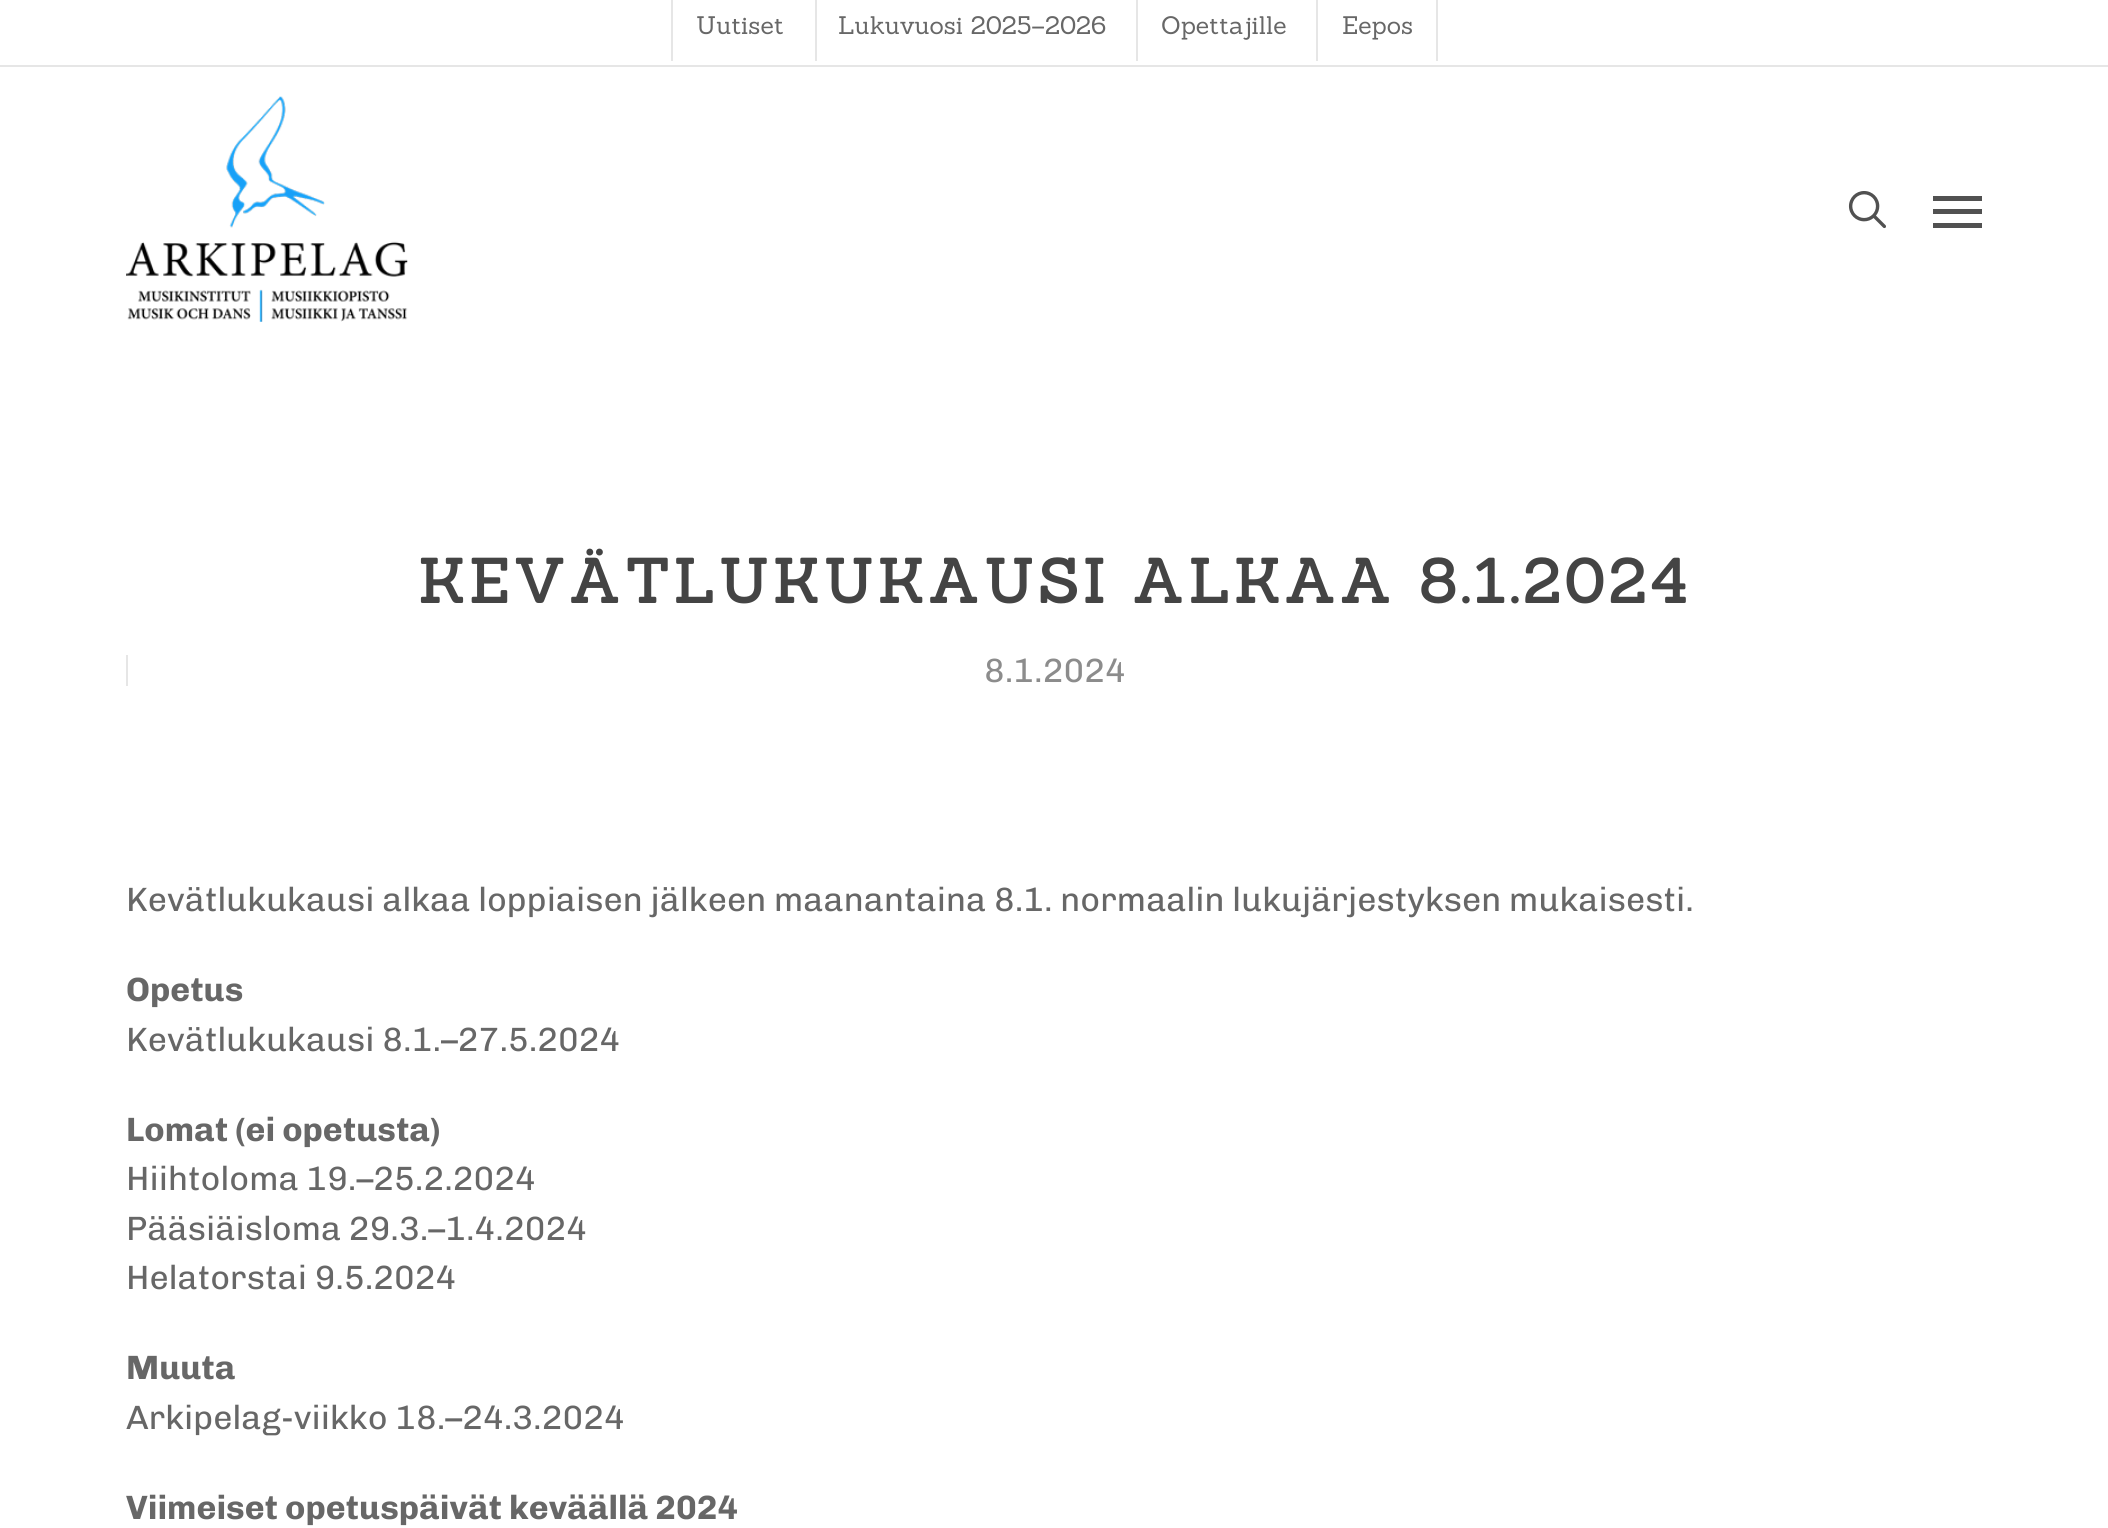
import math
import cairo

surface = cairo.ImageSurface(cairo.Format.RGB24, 2108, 1528)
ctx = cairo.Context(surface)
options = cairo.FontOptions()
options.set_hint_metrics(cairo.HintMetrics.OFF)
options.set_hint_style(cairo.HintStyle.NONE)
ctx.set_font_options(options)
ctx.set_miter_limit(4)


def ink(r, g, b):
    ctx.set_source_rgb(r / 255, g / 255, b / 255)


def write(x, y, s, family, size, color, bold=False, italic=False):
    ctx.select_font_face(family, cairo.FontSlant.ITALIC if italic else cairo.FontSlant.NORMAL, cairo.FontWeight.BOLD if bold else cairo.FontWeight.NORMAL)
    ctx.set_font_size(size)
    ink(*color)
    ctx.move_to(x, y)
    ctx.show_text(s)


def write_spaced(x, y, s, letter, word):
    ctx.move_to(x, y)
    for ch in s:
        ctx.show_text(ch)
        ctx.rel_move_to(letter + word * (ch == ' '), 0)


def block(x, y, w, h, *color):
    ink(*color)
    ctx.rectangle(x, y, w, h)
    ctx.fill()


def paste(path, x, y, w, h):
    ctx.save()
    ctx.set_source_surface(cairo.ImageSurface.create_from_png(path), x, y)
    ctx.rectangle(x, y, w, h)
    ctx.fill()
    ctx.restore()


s1 = dict(family="Sanchez", size=24.75, color=(103, 103, 103))
s2 = dict(family="Chivo", size=33.75, color=(140, 140, 140))
s3 = dict(family="Chivo", size=33.75, color=(103, 103, 103))
s4 = dict(family="Chivo", size=33.75, color=(103, 103, 103), bold=True)

ink(255, 255, 255)
ctx.paint()
block(0, 65, 2108, 2, 230, 230, 230)
block(671, 0, 2, 61, 230, 230, 230)
write(696, 34, "Uutiset", **s1)
block(815, 0, 2, 61, 230, 230, 230)
write(838, 34, "Lukuvuosi 2025–2026", **s1)
block(1136, 0, 2, 61, 230, 230, 230)
write(1161, 34, "Opettajille", **s1)
block(1436, 0, 2, 61, 230, 230, 230)
block(1316, 0, 2, 61, 230, 230, 230)
write(1342, 34, "Eepos", **s1)
paste("pic1.png", 126, 96, 282, 226)
paste("pic2.png", 1848, 191, 38, 38)
block(1933, 196, 49, 5, 81, 81, 81)
block(1933, 223, 49, 5, 81, 81, 81)
block(1933, 209, 49, 5, 81, 81, 81)
ctx.select_font_face("Sanchez", cairo.FontSlant.NORMAL, cairo.FontWeight.BOLD)
ctx.set_font_size(60.75)
ink(68, 68, 68)
write_spaced(418, 603, "KEVÄTLUKUKAUSI ALKAA 8.1.2024", 4.5, 0)
block(126, 655, 2, 31, 230, 230, 230)
write(984, 682, "8.1.2024", **s2)
write(126, 911, "Kevätlukukausi alkaa loppiaisen jälkeen maanantaina 8.1. normaalin lukujärjestyksen mukaisesti.", **s3)
write(126, 1001, "Opetus", **s4)
write(126, 1051, "Kevätlukukausi 8.1.–27.5.2024", **s3)
write(126, 1141, "Lomat (ei opetusta)", **s4)
write(126, 1190, "Hiihtoloma 19.–25.2.2024", **s3)
write(126, 1240, "Pääsiäisloma 29.3.–1.4.2024", **s3)
write(126, 1289, "Helatorstai 9.5.2024", **s3)
write(126, 1379, "Muuta", **s4)
write(126, 1429, "Arkipelag-viikko 18.–24.3.2024", **s3)
write(126, 1519, "Viimeiset opetuspäivät keväällä 2024", **s4)
surface.write_to_png("screenshot.png")
